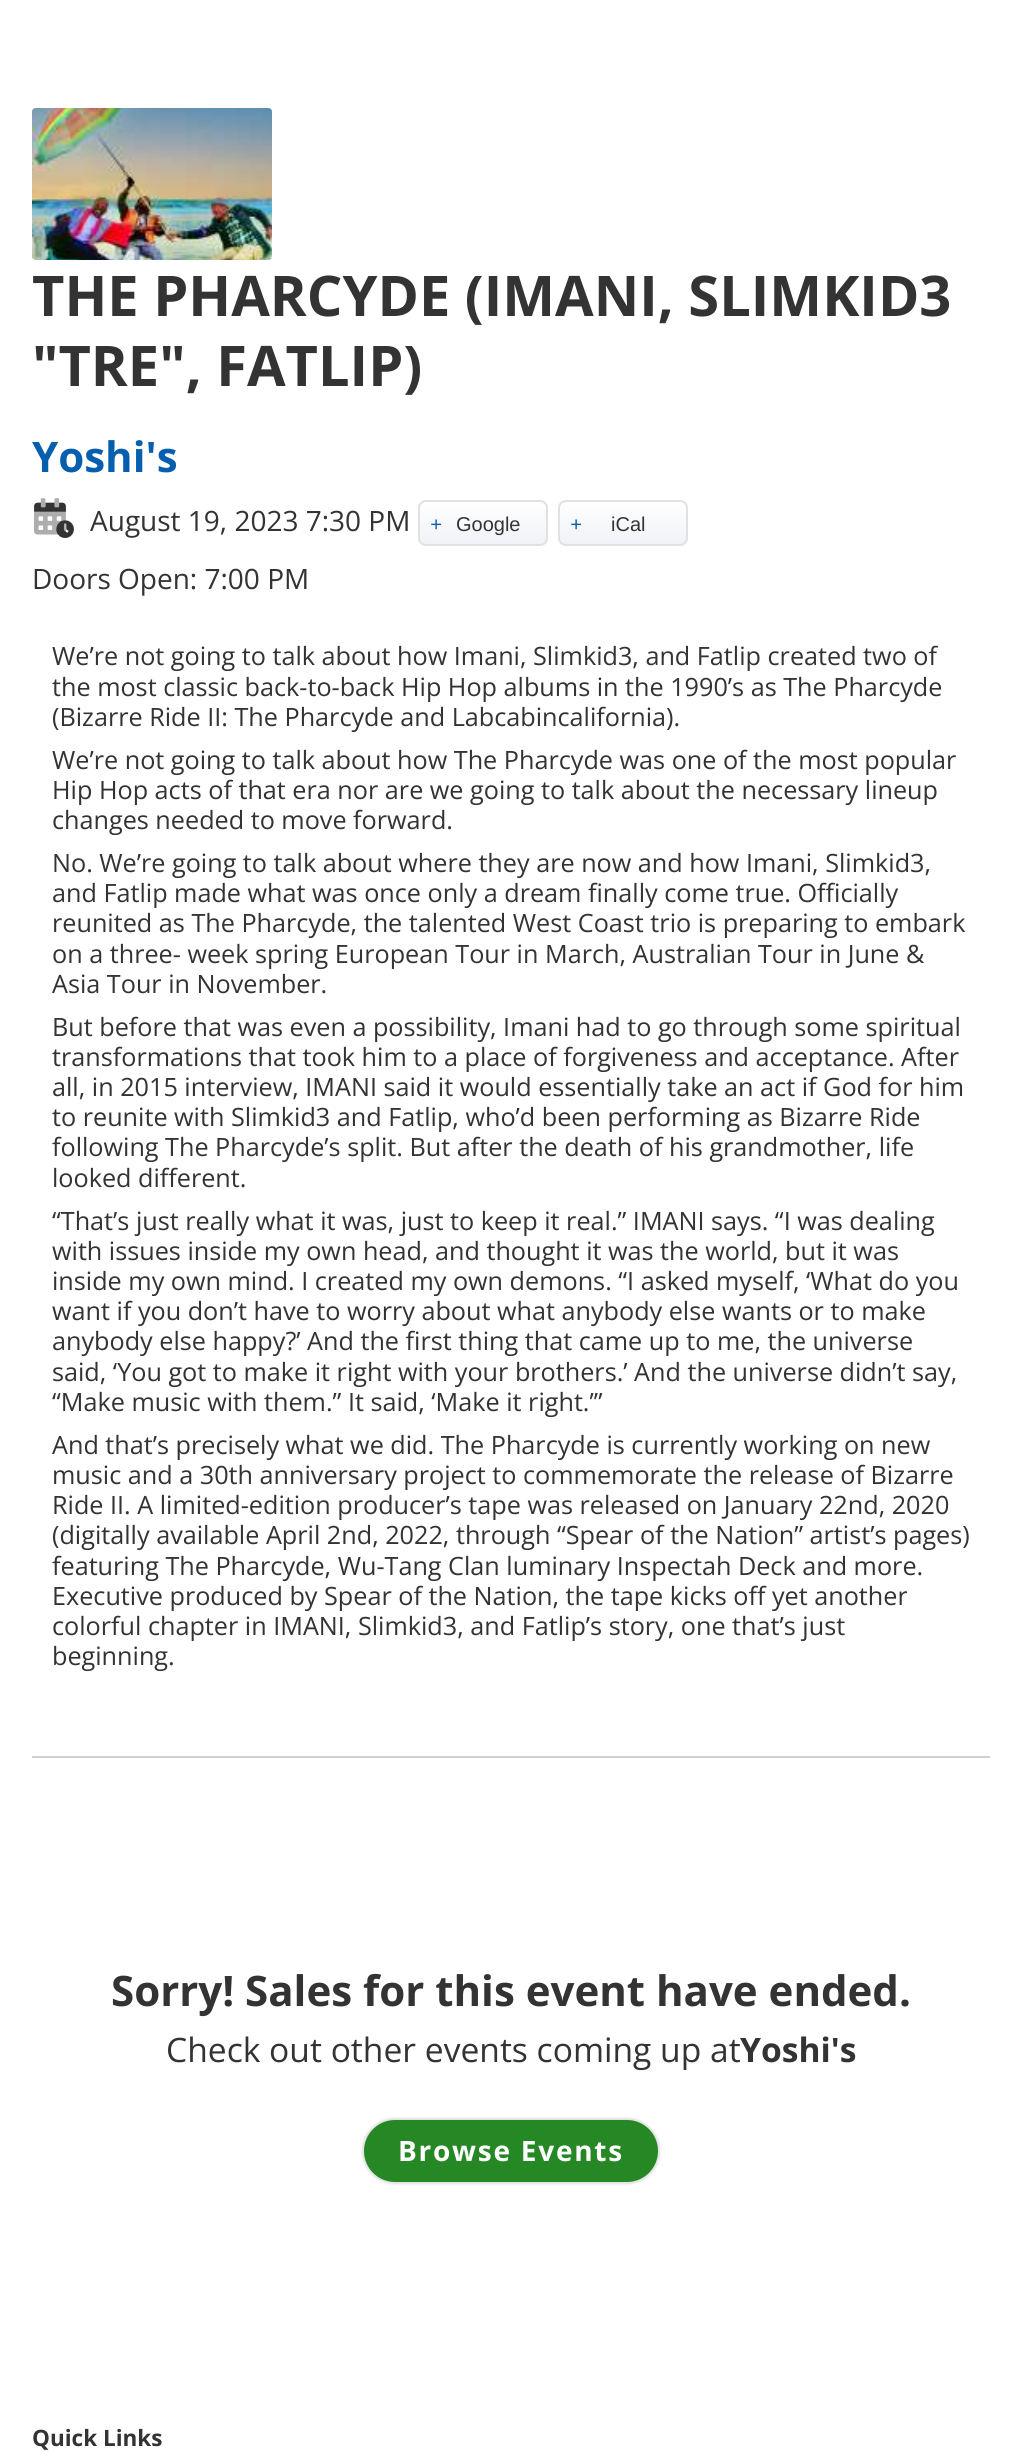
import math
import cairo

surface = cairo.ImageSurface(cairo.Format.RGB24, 1022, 2463)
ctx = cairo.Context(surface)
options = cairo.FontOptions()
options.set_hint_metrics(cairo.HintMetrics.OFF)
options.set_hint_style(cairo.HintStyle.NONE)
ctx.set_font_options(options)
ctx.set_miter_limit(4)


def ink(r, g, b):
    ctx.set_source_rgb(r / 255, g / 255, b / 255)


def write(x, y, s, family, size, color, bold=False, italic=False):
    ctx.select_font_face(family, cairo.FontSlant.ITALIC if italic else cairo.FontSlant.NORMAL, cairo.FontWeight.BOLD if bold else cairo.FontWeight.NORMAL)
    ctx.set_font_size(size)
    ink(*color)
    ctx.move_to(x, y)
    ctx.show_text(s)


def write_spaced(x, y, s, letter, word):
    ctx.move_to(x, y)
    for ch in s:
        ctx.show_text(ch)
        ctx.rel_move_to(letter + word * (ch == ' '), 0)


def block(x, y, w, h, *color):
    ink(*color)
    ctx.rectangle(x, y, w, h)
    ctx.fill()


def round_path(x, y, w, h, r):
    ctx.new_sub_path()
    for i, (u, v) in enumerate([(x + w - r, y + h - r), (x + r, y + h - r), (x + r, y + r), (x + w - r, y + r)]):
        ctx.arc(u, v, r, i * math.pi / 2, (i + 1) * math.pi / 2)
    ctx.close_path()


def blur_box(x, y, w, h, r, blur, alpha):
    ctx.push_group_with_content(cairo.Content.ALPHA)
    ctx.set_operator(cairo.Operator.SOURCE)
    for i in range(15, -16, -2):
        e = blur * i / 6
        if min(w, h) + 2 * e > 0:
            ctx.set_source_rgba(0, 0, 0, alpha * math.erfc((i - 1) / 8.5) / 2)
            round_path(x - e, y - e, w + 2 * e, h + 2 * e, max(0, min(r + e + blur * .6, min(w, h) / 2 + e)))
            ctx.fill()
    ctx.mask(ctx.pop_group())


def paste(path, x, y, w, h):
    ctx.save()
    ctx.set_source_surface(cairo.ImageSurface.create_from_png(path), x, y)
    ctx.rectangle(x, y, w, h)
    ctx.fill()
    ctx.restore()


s1 = dict(family="Open Sans", size=56, color=(51, 51, 51), bold=True)
s2 = dict(family="Open Sans", size=42, color=(6, 95, 174), bold=True)
s3 = dict(family="Open Sans", size=28, color=(51, 51, 51))
s4 = dict(family="Liberation Sans", size=20, color=(6, 95, 174), italic=True)
s5 = dict(family="Liberation Sans", size=20, color=(51, 51, 51))
s6 = dict(family="Open Sans", size=25.2, color=(51, 51, 51))
s7 = dict(family="Open Sans", size=42, color=(51, 51, 51), bold=True)
s8 = dict(family="Open Sans", size=33.6, color=(51, 51, 51))
s9 = dict(family="Open Sans", size=33.6, color=(51, 51, 51), bold=True)
s10 = dict(family="Open Sans", size=22.5, color=(51, 51, 51), bold=True)

ink(255, 255, 255)
ctx.paint()
paste("pic1.png", 32, 108, 240, 152)
write(32, 316, "THE PHARCYDE (IMANI, SLIMKID3", **s1)
write(32, 386, "\"TRE\", FATLIP)", **s1)
write(32, 472, "Yoshi's", **s2)
paste("pic3.png", 34, 502, 32, 10)
paste("pic2.png", 34, 498, 32, 37)
paste("pic4.png", 56, 520, 18, 18)
write(90, 531, "August 19, 2023 7:30 PM", **s3)
ctx.save()
round_path(418, 500, 130, 46, 8)
ctx.clip()
gradient = cairo.LinearGradient(483, 502, 483, 544)
gradient.add_color_stop_rgba(0, 1, 1, 1, 1)
gradient.add_color_stop_rgba(1, 0.945, 0.949, 0.969, 1)
ctx.set_source(gradient)
ctx.rectangle(418, 502, 130, 42)
ctx.fill()
ctx.restore()
round_path(419, 501, 128, 44, 7)
ink(225, 225, 225)
ctx.stroke()
write(430, 531, "+", **s4)
write(456, 531, "Google", **s5)
ctx.save()
round_path(558, 500, 130, 46, 8)
ctx.clip()
gradient = cairo.LinearGradient(623, 502, 623, 544)
gradient.add_color_stop_rgba(0, 1, 1, 1, 1)
gradient.add_color_stop_rgba(1, 0.945, 0.949, 0.969, 1)
ctx.set_source(gradient)
ctx.rectangle(558, 502, 130, 42)
ctx.fill()
ctx.restore()
round_path(559, 501, 128, 44, 7)
ink(225, 225, 225)
ctx.stroke()
write(570, 531, "+", **s4)
write(611, 531, "iCal", **s5)
write(32, 589, "Doors Open: 7:00 PM", **s3)
write(52, 665, "We’re not going to talk about how Imani, Slimkid3, and Fatlip created two of", **s6)
write(52, 696, "the most classic back-to-back Hip Hop albums in the 1990’s as The Pharcyde", **s6)
write(52, 726, "(Bizarre Ride II: The Pharcyde and Labcabincalifornia).", **s6)
write(52, 769, "We’re not going to talk about how The Pharcyde was one of the most popular", **s6)
write(52, 799, "Hip Hop acts of that era nor are we going to talk about the necessary lineup", **s6)
write(52, 829, "changes needed to move forward.", **s6)
write(52, 872, "No. We’re going to talk about where they are now and how Imani, Slimkid3,", **s6)
write(52, 902, "and Fatlip made what was once only a dream finally come true. Officially", **s6)
write(52, 932, "reunited as The Pharcyde, the talented West Coast trio is preparing to embark", **s6)
write(52, 963, "on a three- week spring European Tour in March, Australian Tour in June &", **s6)
write(52, 993, "Asia Tour in November.", **s6)
write(52, 1036, "But before that was even a possibility, Imani had to go through some spiritual", **s6)
write(52, 1066, "transformations that took him to a place of forgiveness and acceptance. After", **s6)
write(52, 1096, "all, in 2015 interview, IMANI said it would essentially take an act if God for him", **s6)
write(52, 1126, "to reunite with Slimkid3 and Fatlip, who’d been performing as Bizarre Ride", **s6)
write(52, 1156, "following The Pharcyde’s split. But after the death of his grandmother, life", **s6)
write(52, 1187, "looked different.", **s6)
write(52, 1230, "“That’s just really what it was, just to keep it real.” IMANI says. “I was dealing", **s6)
write(52, 1260, "with issues inside my own head, and thought it was the world, but it was", **s6)
write(52, 1290, "inside my own mind. I created my own demons. “I asked myself, ‘What do you", **s6)
write(52, 1320, "want if you don’t have to worry about what anybody else wants or to make", **s6)
write(52, 1350, "anybody else happy?’ And the first thing that came up to me, the universe", **s6)
write(52, 1381, "said, ‘You got to make it right with your brothers.’ And the universe didn’t say,", **s6)
write(52, 1411, "“Make music with them.” It said, ‘Make it right.’”", **s6)
write(52, 1454, "And that’s precisely what we did. The Pharcyde is currently working on new", **s6)
write(52, 1484, "music and a 30th anniversary project to commemorate the release of Bizarre", **s6)
write(52, 1514, "Ride II. A limited-edition producer’s tape was released on January 22nd, 2020", **s6)
write(52, 1544, "(digitally available April 2nd, 2022, through “Spear of the Nation” artist’s pages)", **s6)
write(52, 1575, "featuring The Pharcyde, Wu-Tang Clan luminary Inspectah Deck and more.", **s6)
write(52, 1605, "Executive produced by Spear of the Nation, the tape kicks off yet another", **s6)
write(52, 1635, "colorful chapter in IMANI, Slimkid3, and Fatlip’s story, one that’s just", **s6)
write(52, 1665, "beginning.", **s6)
block(32, 1756, 958, 2, 208, 208, 208)
write(111, 2006, "Sorry! Sales for this event have ended.", **s7)
write(166, 2062, "Check out other events coming up at", **s8)
write(740, 2062, "Yoshi's", **s9)
ink(224, 224, 224)
blur_box(362, 2118, 298, 66, 33, 1, 1)
ink(37, 136, 37)
round_path(364, 2120, 294, 62, 31)
ctx.fill()
ctx.set_font_size(28)
ink(255, 255, 255)
write_spaced(398, 2161, "Browse Events", 1.75, 0)
write(32, 2446, "Quick Links", **s10)
surface.write_to_png("screenshot.png")
